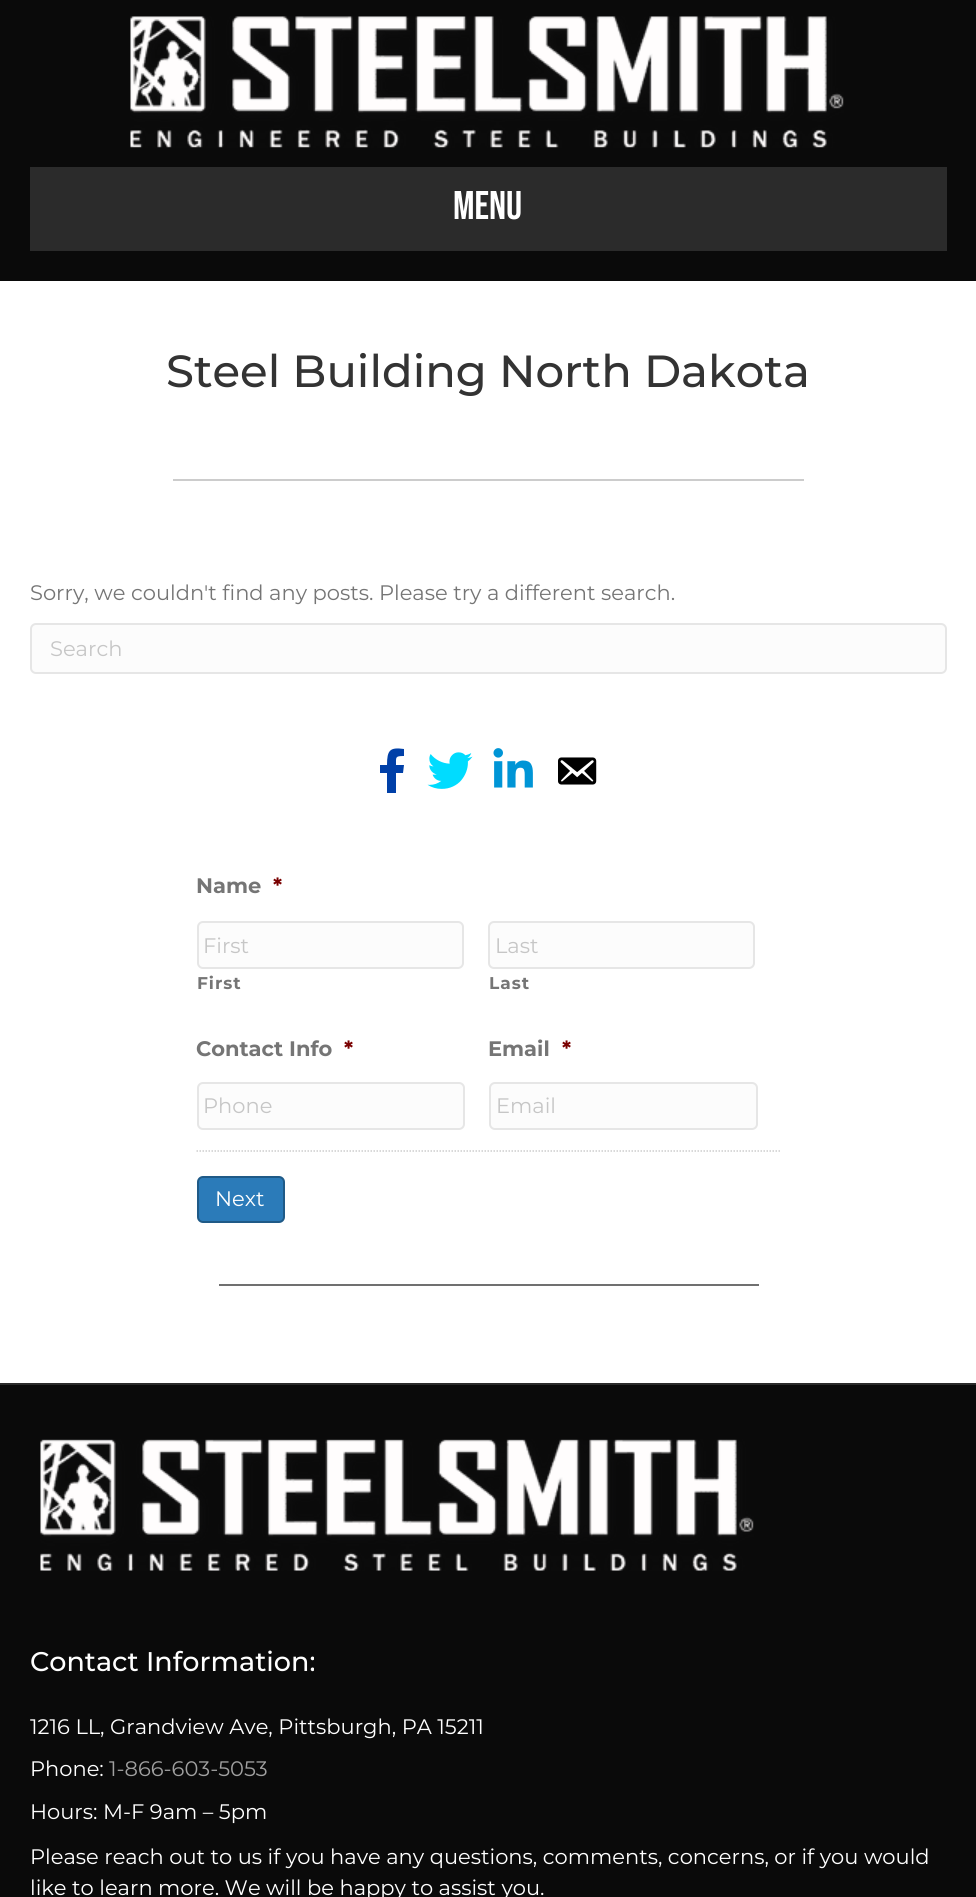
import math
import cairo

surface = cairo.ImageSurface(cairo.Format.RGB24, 976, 1897)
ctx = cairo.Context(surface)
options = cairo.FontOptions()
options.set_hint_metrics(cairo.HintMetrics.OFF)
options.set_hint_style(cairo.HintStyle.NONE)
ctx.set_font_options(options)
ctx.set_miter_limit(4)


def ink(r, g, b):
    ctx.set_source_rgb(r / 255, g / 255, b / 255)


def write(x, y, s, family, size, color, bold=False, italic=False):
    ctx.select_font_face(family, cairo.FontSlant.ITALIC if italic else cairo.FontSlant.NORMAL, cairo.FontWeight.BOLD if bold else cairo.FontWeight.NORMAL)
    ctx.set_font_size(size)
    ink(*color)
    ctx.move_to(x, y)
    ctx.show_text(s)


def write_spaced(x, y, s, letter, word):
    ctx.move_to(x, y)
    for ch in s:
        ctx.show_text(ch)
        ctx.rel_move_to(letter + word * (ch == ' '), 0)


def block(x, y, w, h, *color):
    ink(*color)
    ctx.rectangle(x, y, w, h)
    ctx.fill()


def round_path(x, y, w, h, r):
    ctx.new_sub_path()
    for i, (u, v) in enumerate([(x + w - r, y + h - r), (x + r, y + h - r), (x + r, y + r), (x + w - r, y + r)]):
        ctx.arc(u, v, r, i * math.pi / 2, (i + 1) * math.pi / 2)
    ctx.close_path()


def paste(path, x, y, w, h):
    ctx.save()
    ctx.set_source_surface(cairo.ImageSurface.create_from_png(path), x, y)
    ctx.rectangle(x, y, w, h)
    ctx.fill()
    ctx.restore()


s1 = dict(family="Bebas Neue", size=40, color=(255, 255, 255))
s2 = dict(family="Montserrat Medium", size=45, color=(51, 51, 51))
s3 = dict(family="Montserrat", size=21, color=(117, 117, 117))
s4 = dict(family="Montserrat", size=21, color=(198, 198, 198))
s5 = dict(family="Montserrat", size=21, color=(117, 117, 117), bold=True)
s6 = dict(family="Montserrat", size=21, color=(121, 0, 0), bold=True)
s7 = dict(family="Montserrat", size=21, color=(255, 255, 255))
s8 = dict(family="Montserrat Medium", size=27, color=(255, 255, 255))
s9 = dict(family="Montserrat", size=21, color=(160, 160, 160))

ink(10, 10, 10)
ctx.paint()
paste("pic1.png", 130, 16, 714, 132)
block(30, 167, 917, 84, 43, 43, 43)
write(453, 219, "Menu", **s1)
block(0, 281, 976, 1102, 255, 255, 255)
write(166, 387, "Steel Building North Dakota", **s2)
block(173, 479, 631, 2, 204, 204, 204)
write(30, 600, "Sorry, we couldn't find any posts. Please try a different search.", **s3)
ink(252, 252, 252)
round_path(31, 624, 915, 49, 5)
ctx.fill_preserve()
ink(230, 230, 230)
ctx.stroke()
write(50, 656, "Search", **s4)
ink(0, 64, 168)
ctx.new_path()
ctx.move_to(403, 773)
ctx.line_to(396, 773)
ctx.line_to(396, 793)
ctx.line_to(387, 793)
ctx.line_to(387, 773)
ctx.line_to(380, 773)
ctx.line_to(380, 765)
ctx.line_to(387, 765)
ctx.curve_to(387, 750, 390, 747, 404, 749)
ctx.line_to(404, 756)
ctx.curve_to(395, 756, 396, 757, 396, 765)
ctx.line_to(404, 765)
ctx.close_path()
ctx.fill()
paste("pic2.png", 427, 752, 46, 37)
paste("pic3.png", 493, 748, 40, 40)
paste("pic4.png", 558, 757, 39, 28)
write(196, 893, "Name", **s5)
write(273, 893, "*", **s6)
ink(252, 252, 252)
round_path(198, 922, 265, 46, 5)
ctx.fill_preserve()
ink(230, 230, 230)
ctx.stroke()
write(203, 953, "First", **s4)
ctx.select_font_face("Montserrat", cairo.FontSlant.NORMAL, cairo.FontWeight.BOLD)
ctx.set_font_size(17)
ink(117, 117, 117)
write_spaced(197, 989, "First", 1, 0)
ink(252, 252, 252)
round_path(489, 922, 265, 46, 5)
ctx.fill_preserve()
ink(230, 230, 230)
ctx.stroke()
write(495, 953, "Last", **s4)
ctx.select_font_face("Montserrat", cairo.FontSlant.NORMAL, cairo.FontWeight.BOLD)
ctx.set_font_size(17)
ink(117, 117, 117)
write_spaced(489, 989, "Last", 1, 0)
write(196, 1056, "Contact Info", **s5)
write(344, 1056, "*", **s6)
ink(252, 252, 252)
round_path(198, 1083, 266, 46, 5)
ctx.fill_preserve()
ink(230, 230, 230)
ctx.stroke()
write(203, 1113, "Phone", **s4)
write(488, 1056, "Email", **s5)
write(562, 1056, "*", **s6)
ink(252, 252, 252)
round_path(490, 1083, 267, 46, 5)
ctx.fill_preserve()
ink(230, 230, 230)
ctx.stroke()
write(496, 1113, "Email", **s4)
ctx.new_path()
ctx.move_to(196.5, 1151)
ctx.line_to(781.5, 1151)
ink(204, 204, 204)
ctx.set_line_width(1.5)
ctx.set_dash([1.5, 1.5])
ctx.stroke()
ink(43, 123, 185)
round_path(198, 1177, 86, 45, 5)
ctx.fill_preserve()
ink(31, 90, 135)
ctx.set_line_width(2)
ctx.set_dash([])
ctx.stroke()
write(215, 1206, "Next", **s7)
block(219, 1284, 540, 2, 112, 112, 112)
block(0, 1383, 976, 2, 43, 43, 43)
paste("pic5.png", 40, 1439, 714, 132)
write(30, 1671, "Contact Information:", **s8)
write(30, 1734, "1216 LL, Grandview Ave, Pittsburgh, PA 15211", **s7)
write(30, 1776, "Phone:", **s7)
write(109, 1776, "1-866-603-5053", **s9)
write(30, 1819, "Hours: M-F 9am – 5pm", **s7)
write(30, 1864, "Please reach out to us if you have any questions, comments, concerns, or if you would", **s7)
write(30, 1895, "like to learn more. We will be happy to assist you.", **s7)
surface.write_to_png("screenshot.png")
